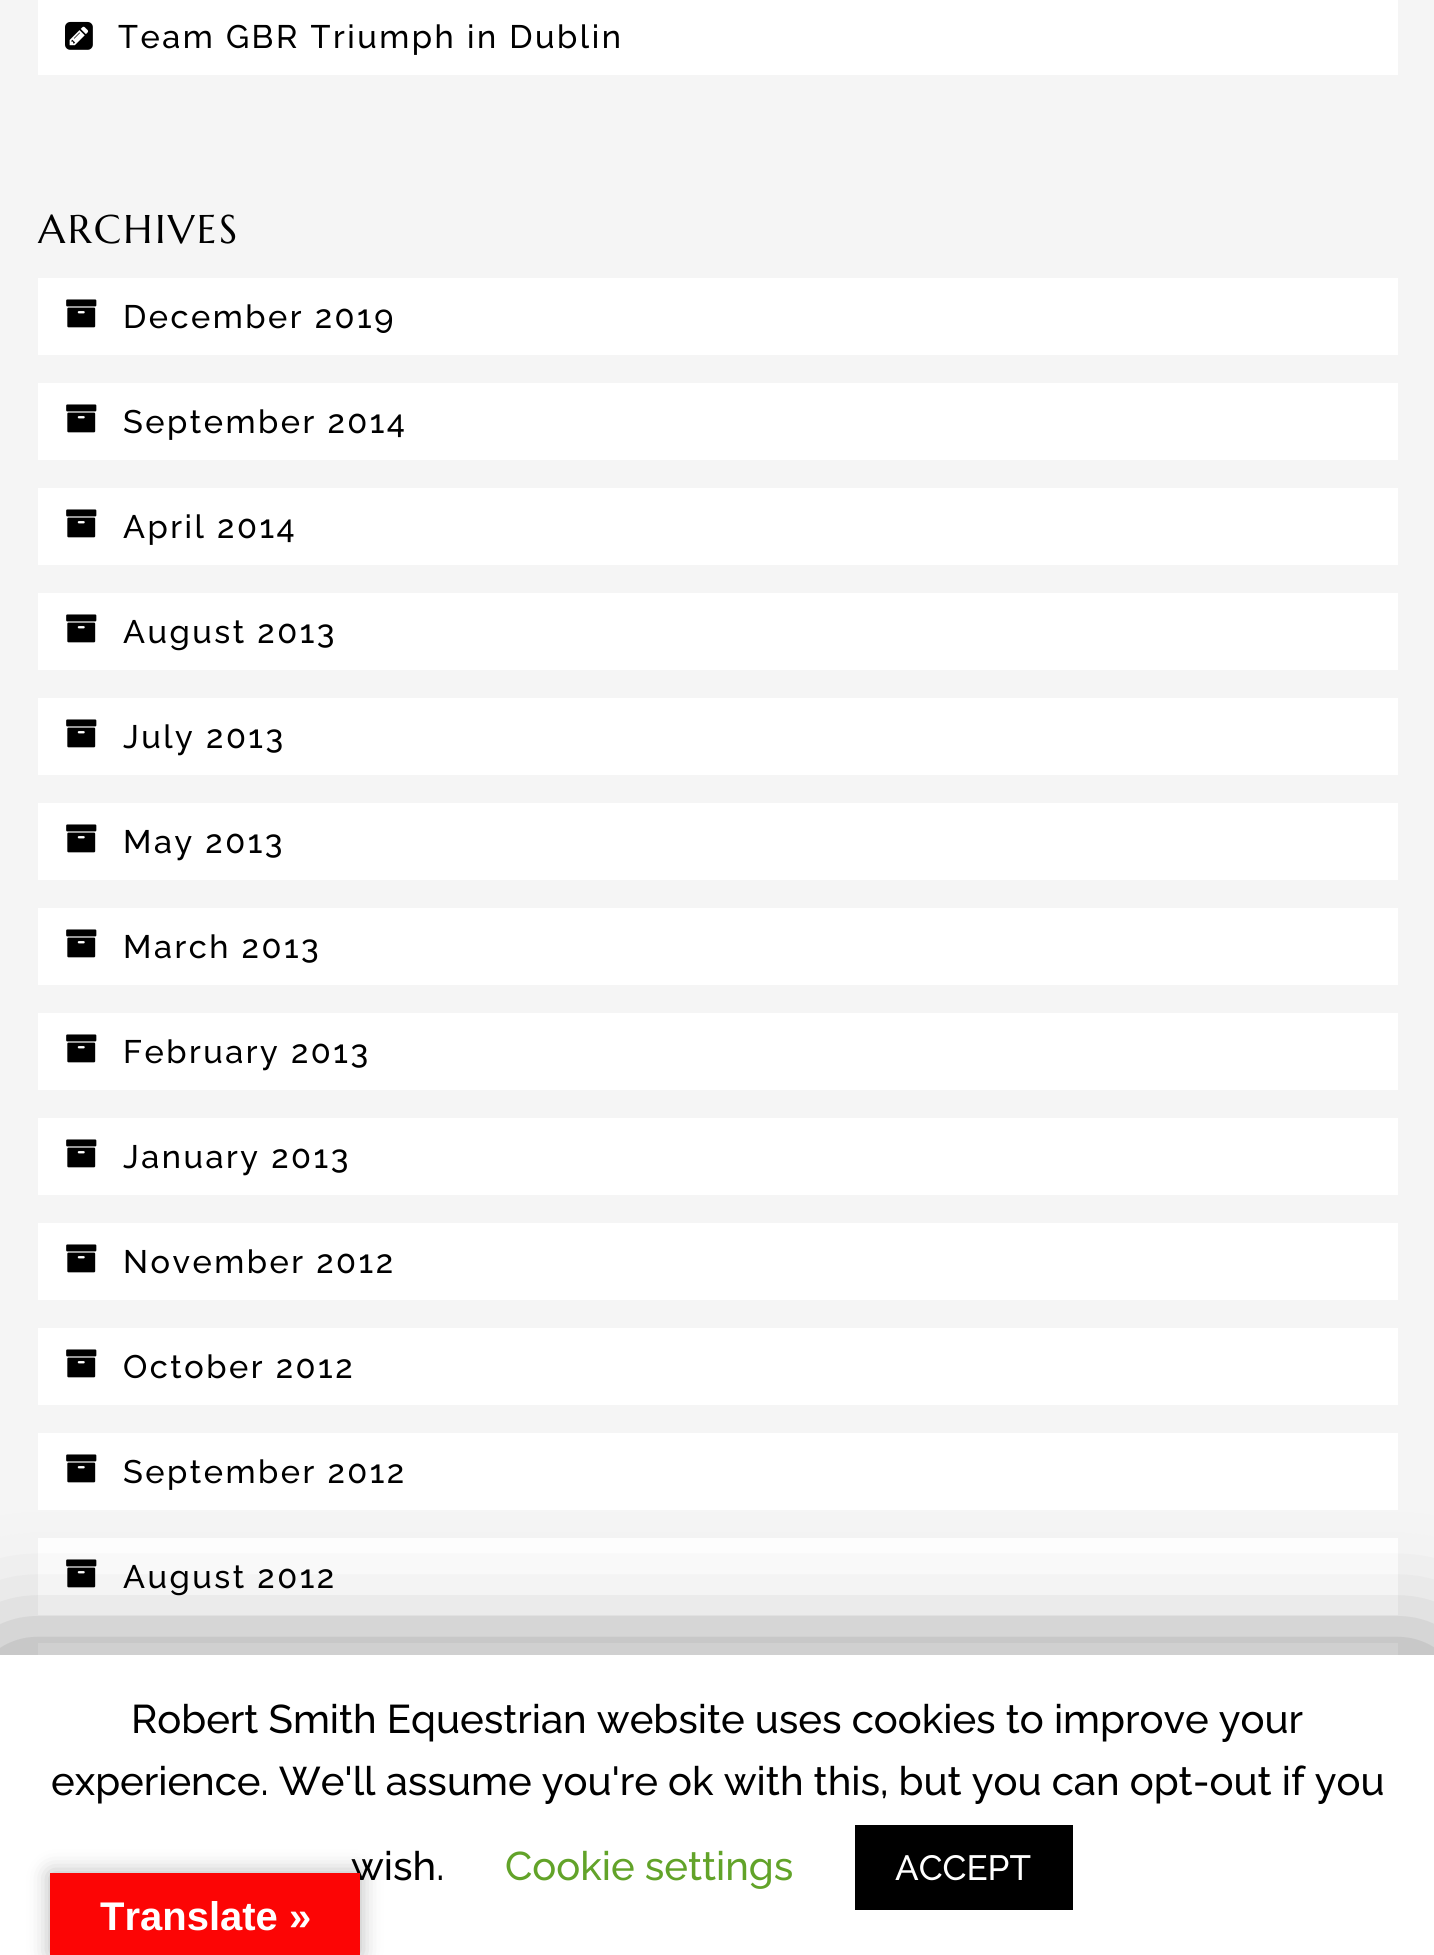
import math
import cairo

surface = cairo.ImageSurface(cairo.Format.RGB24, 1434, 1955)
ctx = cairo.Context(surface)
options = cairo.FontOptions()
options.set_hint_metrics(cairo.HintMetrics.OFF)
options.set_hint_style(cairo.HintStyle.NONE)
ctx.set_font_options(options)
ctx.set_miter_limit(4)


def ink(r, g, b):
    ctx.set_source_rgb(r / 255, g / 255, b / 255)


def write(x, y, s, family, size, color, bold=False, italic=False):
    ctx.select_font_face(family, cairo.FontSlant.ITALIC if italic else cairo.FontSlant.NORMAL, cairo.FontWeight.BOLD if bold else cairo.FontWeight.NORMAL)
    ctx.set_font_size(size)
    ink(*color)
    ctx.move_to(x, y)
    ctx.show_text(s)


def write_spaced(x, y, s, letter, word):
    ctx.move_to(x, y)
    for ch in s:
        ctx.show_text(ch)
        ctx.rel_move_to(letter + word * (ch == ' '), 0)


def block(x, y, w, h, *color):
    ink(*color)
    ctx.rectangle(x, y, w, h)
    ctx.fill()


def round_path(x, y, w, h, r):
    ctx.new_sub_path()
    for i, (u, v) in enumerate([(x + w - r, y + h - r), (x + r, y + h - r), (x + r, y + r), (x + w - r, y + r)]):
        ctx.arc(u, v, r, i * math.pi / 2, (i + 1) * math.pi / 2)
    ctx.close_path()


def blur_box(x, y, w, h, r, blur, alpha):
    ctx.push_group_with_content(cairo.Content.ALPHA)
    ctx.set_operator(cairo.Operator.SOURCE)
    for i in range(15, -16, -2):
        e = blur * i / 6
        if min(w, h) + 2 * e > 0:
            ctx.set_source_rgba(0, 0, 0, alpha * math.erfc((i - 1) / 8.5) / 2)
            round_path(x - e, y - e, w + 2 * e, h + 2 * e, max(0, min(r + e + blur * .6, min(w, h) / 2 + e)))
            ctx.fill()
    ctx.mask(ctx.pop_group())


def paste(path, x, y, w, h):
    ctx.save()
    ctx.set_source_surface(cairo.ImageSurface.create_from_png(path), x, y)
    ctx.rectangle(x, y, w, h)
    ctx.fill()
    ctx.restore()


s1 = dict(family="Raleway Thin", size=40, color=(0, 0, 0))
s2 = dict(family="Raleway Thin", size=40, color=(98, 163, 41))
s3 = dict(family="Raleway Thin", size=35, color=(255, 255, 255))
s4 = dict(family="Liberation Sans", size=40, color=(255, 255, 255), bold=True)

ink(245, 245, 245)
ctx.paint()
block(38, 0, 1360, 75, 255, 255, 255)
paste("pic1.png", 65, 21, 28, 29)
ctx.select_font_face("Raleway Thin")
ctx.set_font_size(32.5)
ink(0, 0, 0)
write_spaced(118, 48, "Team GBR Triumph in Dublin", 2.5, 0)
ctx.select_font_face("Marcellus")
ctx.set_font_size(40)
write_spaced(38, 243, "ARCHIVES", 2.5, 0)
block(38, 278, 1360, 77, 255, 255, 255)
paste("pic2.png", 66, 299, 31, 29)
ctx.select_font_face("Raleway Thin")
ctx.set_font_size(32.5)
ink(0, 0, 0)
write_spaced(123, 328, "December 2019", 2.5, 0)
block(38, 383, 1360, 77, 255, 255, 255)
paste("pic2.png", 66, 404, 31, 29)
ink(0, 0, 0)
write_spaced(123, 433, "September 2014", 2.5, 0)
block(38, 488, 1360, 77, 255, 255, 255)
paste("pic2.png", 66, 509, 31, 29)
ink(0, 0, 0)
write_spaced(123, 538, "April 2014", 2.5, 0)
block(38, 593, 1360, 77, 255, 255, 255)
paste("pic2.png", 66, 614, 31, 29)
ink(0, 0, 0)
write_spaced(123, 643, "August 2013", 2.5, 0)
block(38, 698, 1360, 77, 255, 255, 255)
paste("pic2.png", 66, 719, 31, 29)
ink(0, 0, 0)
write_spaced(123, 748, "July 2013", 2.5, 0)
block(38, 803, 1360, 77, 255, 255, 255)
paste("pic2.png", 66, 824, 31, 29)
ink(0, 0, 0)
write_spaced(123, 853, "May 2013", 2.5, 0)
block(38, 908, 1360, 77, 255, 255, 255)
paste("pic2.png", 66, 929, 31, 29)
ink(0, 0, 0)
write_spaced(123, 958, "March 2013", 2.5, 0)
block(38, 1013, 1360, 77, 255, 255, 255)
paste("pic2.png", 66, 1034, 31, 29)
ink(0, 0, 0)
write_spaced(123, 1063, "February 2013", 2.5, 0)
block(38, 1118, 1360, 77, 255, 255, 255)
paste("pic2.png", 66, 1139, 31, 29)
ink(0, 0, 0)
write_spaced(123, 1168, "January 2013", 2.5, 0)
block(38, 1223, 1360, 77, 255, 255, 255)
paste("pic2.png", 66, 1244, 31, 29)
ink(0, 0, 0)
write_spaced(123, 1273, "November 2012", 2.5, 0)
block(38, 1328, 1360, 77, 255, 255, 255)
paste("pic2.png", 66, 1349, 31, 29)
ink(0, 0, 0)
write_spaced(123, 1378, "October 2012", 2.5, 0)
block(38, 1433, 1360, 77, 255, 255, 255)
paste("pic2.png", 66, 1454, 31, 29)
ink(0, 0, 0)
write_spaced(123, 1483, "September 2012", 2.5, 0)
block(38, 1538, 1360, 77, 255, 255, 255)
paste("pic2.png", 66, 1559, 31, 29)
ink(0, 0, 0)
write_spaced(123, 1588, "August 2012", 2.5, 0)
block(38, 1643, 1360, 12, 255, 255, 255)
ink(0, 0, 0)
blur_box(0, 1668, 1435, 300, 0, 62.5, 0.5)
block(0, 1655, 1434, 300, 255, 255, 255)
write(131, 1733, "Robert Smith Equestrian website uses cookies to improve your", **s1)
write(51, 1795, "experience. We'll assume you're ok with this, but you can opt-out if you", **s1)
write(351, 1880, "wish.", **s1)
write(505, 1880, "Cookie settings", **s2)
block(855, 1825, 218, 85, 0, 0, 0)
write(895, 1880, "ACCEPT", **s3)
ink(0, 0, 0)
blur_box(50, 1873, 310, 82, 0, 11, 0.3)
block(50, 1873, 310, 82, 252, 5, 5)
write(100, 1930, "Translate »", **s4)
surface.write_to_png("screenshot.png")
